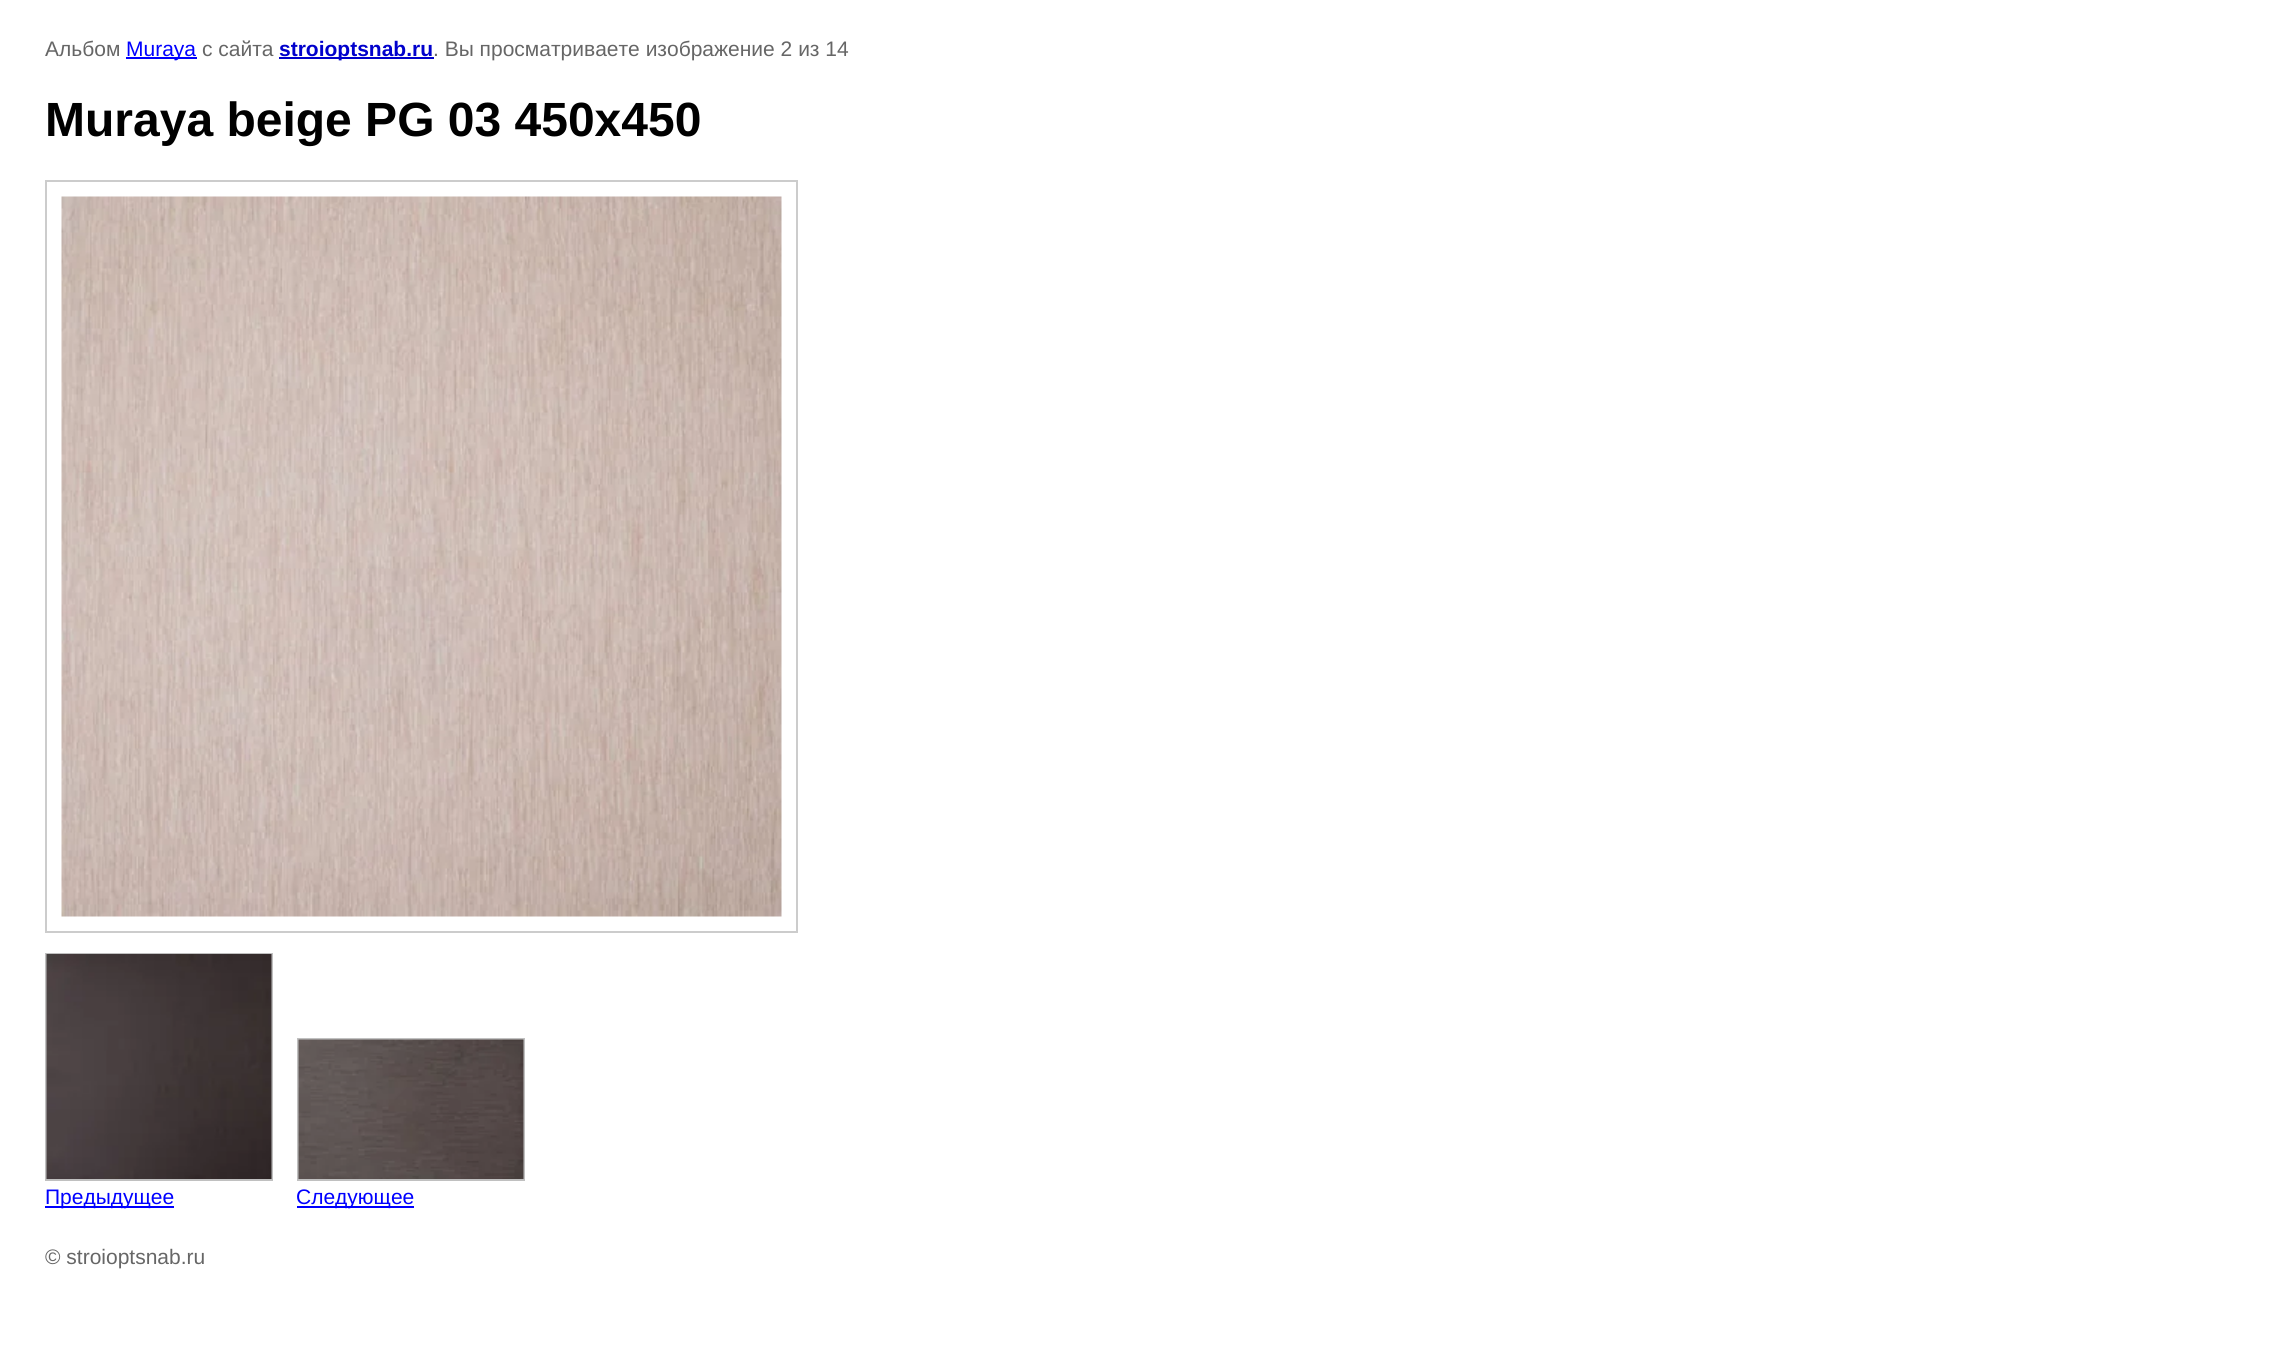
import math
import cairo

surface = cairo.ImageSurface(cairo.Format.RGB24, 2290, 1364)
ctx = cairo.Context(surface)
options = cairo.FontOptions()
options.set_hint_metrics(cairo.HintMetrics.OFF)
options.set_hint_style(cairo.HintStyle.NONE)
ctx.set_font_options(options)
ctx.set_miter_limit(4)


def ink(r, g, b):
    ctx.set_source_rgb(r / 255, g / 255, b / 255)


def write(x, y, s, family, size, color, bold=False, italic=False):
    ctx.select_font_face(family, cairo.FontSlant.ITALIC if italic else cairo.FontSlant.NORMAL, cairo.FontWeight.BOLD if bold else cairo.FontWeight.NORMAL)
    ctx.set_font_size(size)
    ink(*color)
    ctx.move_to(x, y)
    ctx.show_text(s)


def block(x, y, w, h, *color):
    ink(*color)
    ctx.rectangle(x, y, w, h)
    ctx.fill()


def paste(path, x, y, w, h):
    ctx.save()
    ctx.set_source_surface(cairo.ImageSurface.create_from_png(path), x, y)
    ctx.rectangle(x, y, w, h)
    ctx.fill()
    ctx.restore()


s1 = dict(family="Liberation Sans", size=21, color=(102, 102, 102))
s2 = dict(family="Liberation Sans", size=21, color=(0, 0, 255))
s3 = dict(family="Liberation Sans", size=21, color=(0, 0, 204), bold=True)
s4 = dict(family="Liberation Sans", size=48, color=(0, 0, 0), bold=True)

ink(255, 255, 255)
ctx.paint()
write(45, 56, "Альбом", **s1)
block(126, 57, 71, 2, 0, 0, 255)
write(126, 56, "Muraya", **s2)
write(202, 56, "с сайта", **s1)
block(279, 57, 155, 2, 0, 0, 204)
write(279, 56, "stroioptsnab.ru", **s3)
write(433, 56, ". Вы просматриваете изображение 2 из 14", **s1)
write(45, 136, "Muraya beige PG 03 450х450", **s4)
ctx.rectangle(46, 181, 751, 751)
ink(204, 204, 204)
ctx.stroke()
paste("pic1.png", 61, 196, 721, 721)
ctx.rectangle(46, 954, 226, 226)
ink(192, 192, 192)
ctx.stroke()
paste("pic2.png", 46, 954, 226, 225)
block(45, 1206, 129, 2, 0, 0, 255)
write(45, 1204, "Предыдущее", **s2)
ctx.rectangle(298, 1039, 226, 141)
ink(192, 192, 192)
ctx.stroke()
paste("pic3.png", 298, 1039, 226, 140)
block(297, 1206, 117, 2, 0, 0, 255)
write(296, 1204, "Следующее", **s2)
write(45, 1264, "© stroioptsnab.ru", **s1)
surface.write_to_png("screenshot.png")
